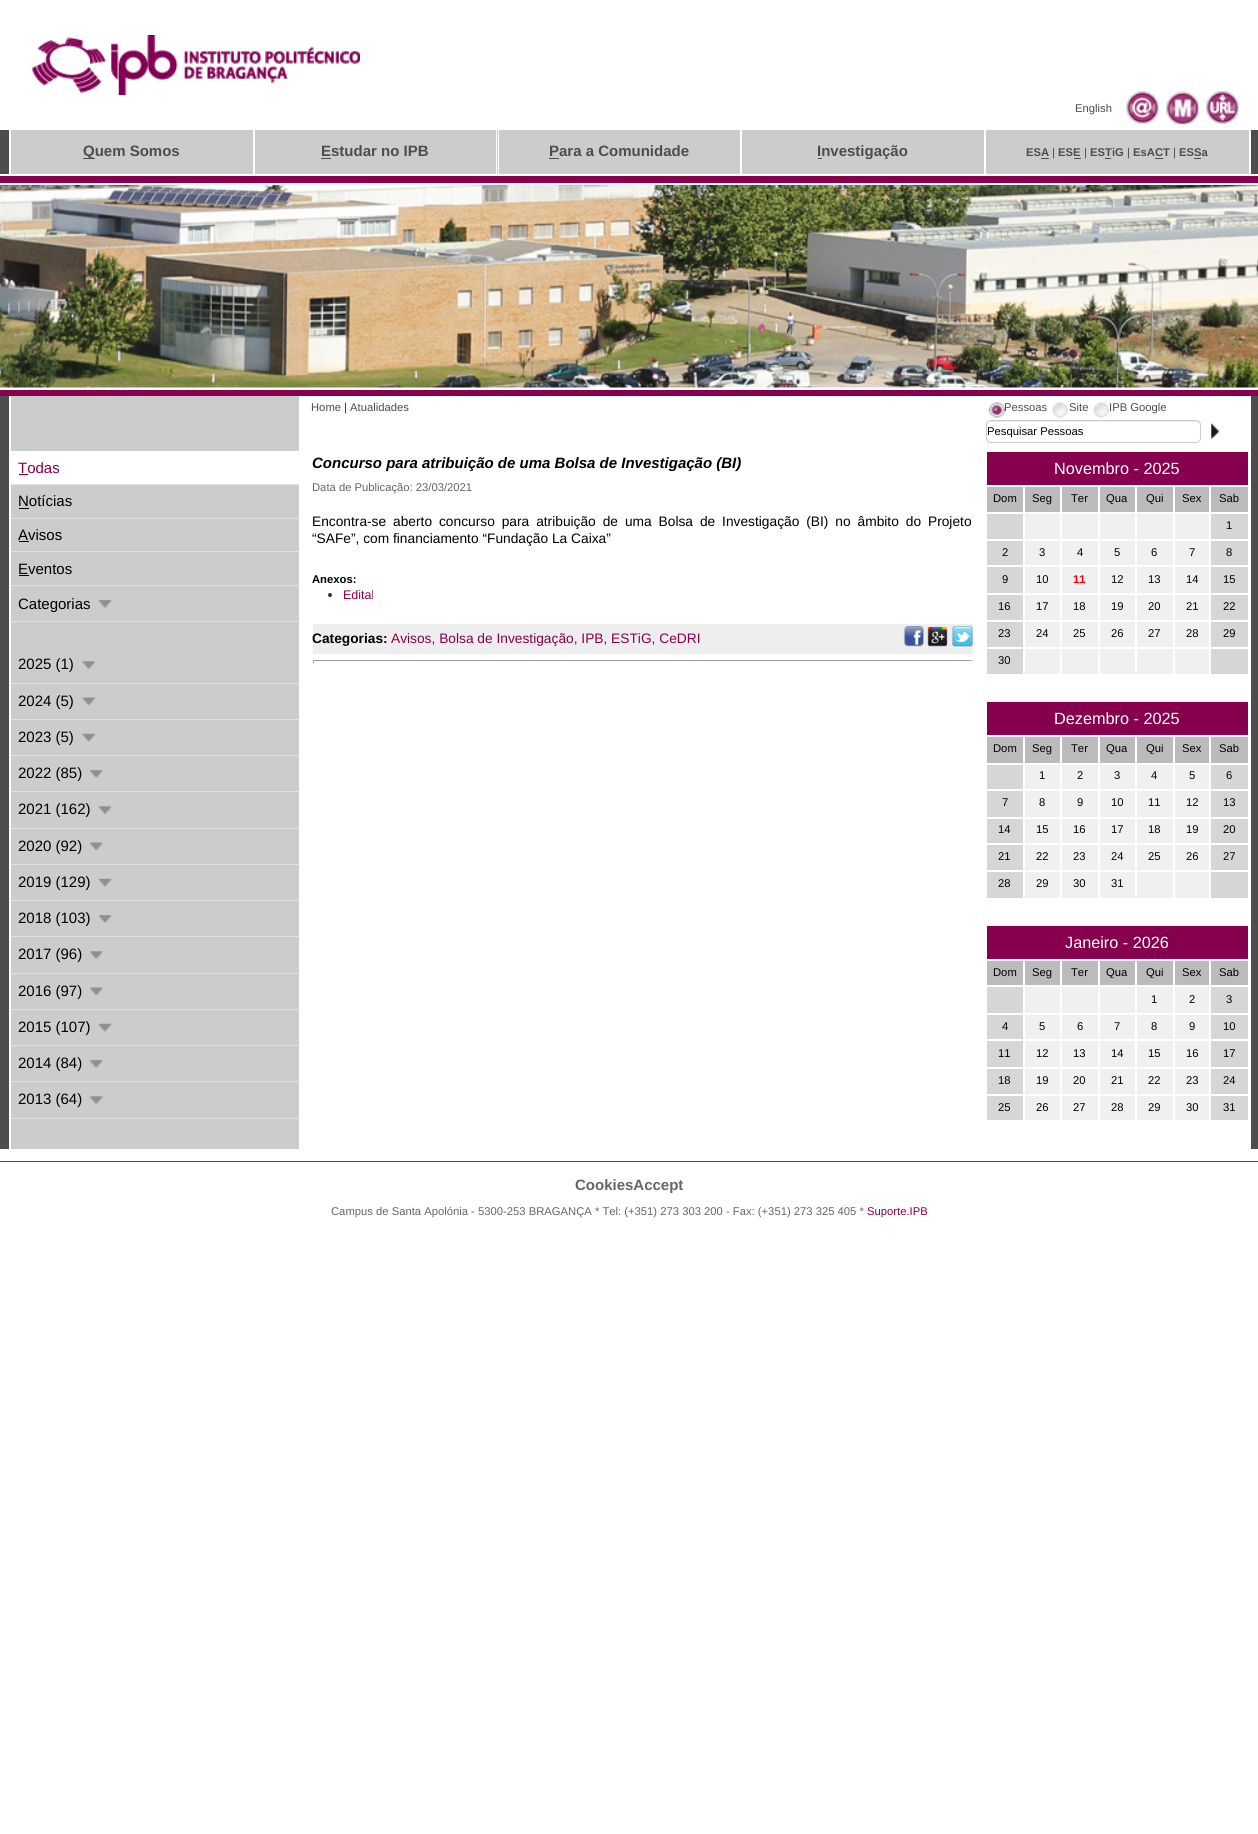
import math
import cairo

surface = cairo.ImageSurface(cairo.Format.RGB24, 1258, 1834)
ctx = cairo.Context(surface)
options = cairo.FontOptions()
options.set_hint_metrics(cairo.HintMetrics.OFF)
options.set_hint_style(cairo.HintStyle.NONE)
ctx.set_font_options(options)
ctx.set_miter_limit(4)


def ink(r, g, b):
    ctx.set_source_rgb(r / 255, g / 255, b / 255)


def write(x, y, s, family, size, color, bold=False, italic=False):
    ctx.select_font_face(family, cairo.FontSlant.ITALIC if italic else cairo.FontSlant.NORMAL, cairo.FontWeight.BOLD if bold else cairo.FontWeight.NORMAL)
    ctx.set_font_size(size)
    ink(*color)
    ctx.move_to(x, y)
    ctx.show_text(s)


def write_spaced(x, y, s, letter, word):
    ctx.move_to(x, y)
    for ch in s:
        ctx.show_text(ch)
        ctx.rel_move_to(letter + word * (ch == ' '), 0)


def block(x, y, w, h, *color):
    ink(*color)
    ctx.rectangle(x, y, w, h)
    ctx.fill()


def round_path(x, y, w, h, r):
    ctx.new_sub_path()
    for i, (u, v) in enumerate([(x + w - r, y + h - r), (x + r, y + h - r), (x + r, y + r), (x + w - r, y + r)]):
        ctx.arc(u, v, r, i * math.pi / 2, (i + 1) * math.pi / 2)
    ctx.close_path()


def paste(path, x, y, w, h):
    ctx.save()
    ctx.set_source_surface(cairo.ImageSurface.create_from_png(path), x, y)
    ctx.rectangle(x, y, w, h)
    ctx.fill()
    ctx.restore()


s1 = dict(family="Liberation Sans", size=11.25, color=(77, 77, 77))
s2 = dict(family="Liberation Sans", size=15, color=(77, 77, 77), bold=True)
s3 = dict(family="Liberation Sans", size=11.25, color=(77, 77, 77), bold=True)
s4 = dict(family="Liberation Sans", size=11.25, color=(51, 51, 51))
s5 = dict(family="Liberation Sans", size=11.25, color=(0, 0, 0))
s6 = dict(family="Liberation Sans", size=15, color=(135, 0, 78))
s7 = dict(family="Liberation Sans", size=15, color=(0, 0, 0))
s8 = dict(family="Liberation Sans", size=15, color=(0, 0, 0), bold=True, italic=True)
s9 = dict(family="Liberation Sans", size=11.25, color=(102, 102, 102))
s10 = dict(family="Liberation Sans", size=13.75, color=(0, 0, 0))
s11 = dict(family="Liberation Sans", size=11.25, color=(0, 0, 0), bold=True)
s12 = dict(family="Liberation Sans", size=12.5, color=(135, 0, 78))
s13 = dict(family="Liberation Sans", size=13.75, color=(0, 0, 0), bold=True)
s14 = dict(family="Liberation Sans", size=13.75, color=(135, 0, 78))
s15 = dict(family="Liberation Sans", size=16.25, color=(255, 255, 255))
s16 = dict(family="Liberation Sans", size=11.25, color=(255, 0, 0), bold=True)
s17 = dict(family="Liberation Sans", size=15, color=(102, 102, 102), bold=True)
s18 = dict(family="Liberation Sans", size=11.25, color=(135, 0, 78))

ink(255, 255, 255)
ctx.paint()
paste("pic1.png", 32, 35, 328, 60)
write(1075, 112, "English", **s1)
paste("pic2.png", 1126, 91, 33, 33)
paste("pic3.png", 1166, 91, 33, 33)
paste("pic4.png", 1206, 91, 33, 33)
block(0, 130, 1258, 44, 77, 77, 77)
block(9, 130, 1242, 44, 255, 255, 255)
block(11, 130, 242, 44, 204, 204, 204)
block(83, 158, 12, 1, 77, 77, 77)
write(83, 156, "Quem Somos", **s2)
block(255, 130, 243, 44, 204, 204, 204)
block(496, 130, 1, 44, 255, 255, 255)
write(321, 156, "Estudar no IPB", **s2)
block(321, 158, 10, 1, 77, 77, 77)
block(499, 130, 241, 44, 204, 204, 204)
write(549, 156, "Para a Comunidade", **s2)
block(549, 158, 10, 1, 77, 77, 77)
block(742, 130, 242, 44, 204, 204, 204)
block(818, 158, 4, 1, 77, 77, 77)
write(817, 156, "Investigação", **s2)
block(986, 130, 263, 44, 204, 204, 204)
write(1026, 156, "ESA", **s3)
block(1041, 158, 8, 1, 77, 77, 77)
write(1052, 156, "|", **s1)
write(1058, 156, "ESE", **s3)
block(1074, 158, 7, 1, 77, 77, 77)
write(1084, 156, "|", **s1)
write(1090, 156, "ESTiG", **s3)
block(1105, 158, 6, 1, 77, 77, 77)
write(1127, 156, "|", **s1)
write(1133, 156, "EsACT", **s3)
block(1155, 158, 8, 1, 77, 77, 77)
write(1173, 156, "|", **s1)
write(1179, 156, "ESSa", **s3)
block(1194, 158, 7, 1, 77, 77, 77)
block(0, 176, 1258, 7, 135, 0, 78)
paste("pic5.png", 0, 185, 1258, 203)
block(0, 390, 1258, 6, 135, 0, 78)
block(0, 396, 1258, 753, 77, 77, 77)
block(9, 396, 1242, 753, 255, 255, 255)
block(11, 396, 288, 55, 204, 204, 204)
write(311, 411, "Home", **s1)
write(344, 411, "|", **s4)
write(350, 411, "Atualidades", **s1)
paste("pic6.png", 988, 402, 18, 16)
write(1004, 411, "Pessoas", **s1)
paste("pic7.png", 1052, 402, 16, 16)
write(1069, 411, "Site", **s1)
paste("pic8.png", 1093, 402, 16, 16)
write(1109, 411, "IPB Google", **s1)
ink(236, 236, 236)
ctx.new_path()
ctx.move_to(991, 422)
ctx.line_to(1196, 422)
ctx.curve_to(1198, 422, 1200, 424, 1200, 426)
ctx.line_to(1200, 425)
ctx.curve_to(1200, 423, 1198, 421, 1196, 421)
ctx.line_to(992, 421)
ctx.curve_to(990, 421, 988, 423, 988, 425)
ctx.line_to(988, 426)
ctx.curve_to(988, 424, 989, 422, 991, 422)
ctx.close_path()
ctx.fill()
round_path(986.5, 420.5, 214, 22, 4.5)
ink(204, 204, 204)
ctx.set_line_width(1)
ctx.stroke()
ctx.save()
ctx.rectangle(988, 419, 212, 25)
ctx.clip()
write(987, 435, "Pesquisar Pessoas", **s5)
ctx.restore()
paste("pic9.png", 1211, 423, 8, 16)
block(11, 485, 288, 664, 204, 204, 204)
block(11, 484, 288, 1, 226, 226, 226)
write(18, 473, "Todas", **s6)
block(19, 474, 9, 1, 135, 0, 78)
block(11, 518, 288, 1, 226, 226, 226)
write(18, 506, "Notícias", **s7)
block(19, 508, 10, 1, 0, 0, 0)
block(11, 551, 288, 1, 226, 226, 226)
write(18, 540, "Avisos", **s7)
block(19, 541, 10, 1, 0, 0, 0)
block(11, 585, 288, 1, 226, 226, 226)
write(18, 574, "Eventos", **s7)
block(19, 575, 10, 1, 0, 0, 0)
block(11, 621, 288, 1, 226, 226, 226)
write(18, 609, "Categorias", **s7)
paste("pic10.png", 98, 600, 14, 8)
block(11, 683, 288, 1, 226, 226, 226)
write(18, 669, "2025 (1)", **s7)
paste("pic11.png", 82, 661, 13, 8)
block(11, 719, 288, 1, 226, 226, 226)
write(18, 706, "2024 (5)", **s7)
paste("pic12.png", 82, 697, 14, 9)
block(11, 755, 288, 1, 226, 226, 226)
write(18, 742, "2023 (5)", **s7)
paste("pic13.png", 82, 733, 14, 9)
block(11, 791, 288, 1, 226, 226, 226)
write(18, 778, "2022 (85)", **s7)
paste("pic14.png", 90, 770, 13, 8)
block(11, 828, 288, 1, 226, 226, 226)
write(18, 814, "2021 (162)", **s7)
paste("pic15.png", 98, 806, 14, 8)
block(11, 864, 288, 1, 226, 226, 226)
write(18, 851, "2020 (92)", **s7)
paste("pic16.png", 90, 842, 13, 9)
block(11, 900, 288, 1, 226, 226, 226)
write(18, 887, "2019 (129)", **s7)
paste("pic17.png", 98, 878, 14, 9)
block(11, 936, 288, 1, 226, 226, 226)
write(18, 923, "2018 (103)", **s7)
paste("pic10.png", 98, 915, 14, 8)
block(11, 973, 288, 1, 226, 226, 226)
write(18, 959, "2017 (96)", **s7)
paste("pic18.png", 90, 951, 13, 8)
block(11, 1009, 288, 1, 226, 226, 226)
write(18, 996, "2016 (97)", **s7)
paste("pic16.png", 90, 987, 13, 9)
block(11, 1045, 288, 1, 226, 226, 226)
write(18, 1032, "2015 (107)", **s7)
paste("pic17.png", 98, 1023, 14, 9)
block(11, 1081, 288, 1, 226, 226, 226)
write(18, 1068, "2014 (84)", **s7)
paste("pic14.png", 90, 1060, 13, 8)
block(11, 1118, 288, 1, 226, 226, 226)
write(18, 1104, "2013 (64)", **s7)
paste("pic18.png", 90, 1096, 13, 8)
write(312, 468, "Concurso para atribuição de uma Bolsa de Investigação (BI)", **s8)
write(312, 491, "Data de Publicação: 23/03/2021", **s9)
ctx.set_font_size(13.75)
ink(0, 0, 0)
write_spaced(312, 526, "Encontra-se aberto concurso para atribuição de uma Bolsa de Investigação (BI) no âmbito do Projeto", 0, 3.1)
write(312, 543, "“SAFe”, com financiamento “Fundação La Caixa”", **s10)
write(312, 583, "Anexos:", **s11)
ink(51, 51, 51)
ctx.new_path()
ctx.arc(330, 595, 2, 0, 2 * math.pi)
ctx.fill()
write(343, 599, "Edital", **s12)
block(313, 624, 660, 30, 238, 238, 238)
write(312, 643, "Categorias:", **s13)
write(391, 643, "Avisos, Bolsa de Investigação, IPB, ESTiG, CeDRI", **s14)
paste("pic19.png", 903, 626, 21, 21)
paste("pic20.png", 927, 626, 21, 21)
paste("pic21.png", 952, 626, 21, 21)
block(313, 660, 660, 1, 159, 159, 159)
block(971, 660, 1, 3, 238, 238, 238)
block(971, 661, 2, 1, 255, 255, 255)
block(313, 660, 1, 3, 159, 159, 159)
block(987, 452, 261, 33, 135, 0, 78)
write(1054, 474, "Novembro - 2025", **s15)
block(987, 487, 36, 25, 187, 187, 187)
write(993, 502, "Dom", **s5)
block(1025, 487, 35, 25, 187, 187, 187)
write(1032, 502, "Seg", **s5)
block(1062, 487, 36, 25, 187, 187, 187)
write(1071, 502, "Ter", **s5)
block(1100, 487, 35, 25, 187, 187, 187)
write(1106, 502, "Qua", **s5)
block(1137, 487, 36, 25, 187, 187, 187)
write(1146, 502, "Qui", **s5)
block(1175, 487, 34, 25, 187, 187, 187)
write(1182, 502, "Sex", **s5)
block(1211, 487, 37, 25, 187, 187, 187)
write(1219, 502, "Sab", **s5)
block(987, 514, 36, 25, 214, 214, 214)
block(1025, 514, 35, 25, 240, 240, 240)
block(1062, 514, 36, 25, 240, 240, 240)
block(1100, 514, 35, 25, 240, 240, 240)
block(1137, 514, 36, 25, 240, 240, 240)
block(1175, 514, 34, 25, 240, 240, 240)
block(1211, 514, 37, 25, 214, 214, 214)
write(1226, 529, "1", **s5)
block(987, 541, 36, 24, 214, 214, 214)
write(1002, 556, "2", **s5)
block(1025, 541, 35, 24, 240, 240, 240)
write(1039, 556, "3", **s5)
block(1062, 541, 36, 24, 240, 240, 240)
write(1077, 556, "4", **s5)
block(1100, 541, 35, 24, 240, 240, 240)
write(1114, 556, "5", **s5)
block(1137, 541, 36, 24, 240, 240, 240)
write(1151, 556, "6", **s5)
block(1175, 541, 34, 24, 240, 240, 240)
write(1189, 556, "7", **s5)
block(1211, 541, 37, 24, 214, 214, 214)
write(1226, 556, "8", **s5)
block(987, 567, 36, 26, 214, 214, 214)
write(1002, 583, "9", **s5)
block(1025, 567, 35, 26, 240, 240, 240)
write(1036, 583, "10", **s5)
block(1062, 567, 36, 26, 240, 240, 240)
write(1073, 583, "11", **s16)
block(1100, 567, 35, 26, 240, 240, 240)
write(1111, 583, "12", **s5)
block(1137, 567, 36, 26, 240, 240, 240)
write(1148, 583, "13", **s5)
block(1175, 567, 34, 26, 240, 240, 240)
write(1186, 583, "14", **s5)
block(1211, 567, 37, 26, 214, 214, 214)
write(1223, 583, "15", **s5)
block(987, 595, 36, 25, 214, 214, 214)
write(998, 610, "16", **s5)
block(1025, 595, 35, 25, 240, 240, 240)
write(1036, 610, "17", **s5)
block(1062, 595, 36, 25, 240, 240, 240)
write(1073, 610, "18", **s5)
block(1100, 595, 35, 25, 240, 240, 240)
write(1111, 610, "19", **s5)
block(1137, 595, 36, 25, 240, 240, 240)
write(1148, 610, "20", **s5)
block(1175, 595, 34, 25, 240, 240, 240)
write(1186, 610, "21", **s5)
block(1211, 595, 37, 25, 214, 214, 214)
write(1223, 610, "22", **s5)
block(987, 622, 36, 25, 214, 214, 214)
write(998, 637, "23", **s5)
block(1025, 622, 35, 25, 240, 240, 240)
write(1036, 637, "24", **s5)
block(1062, 622, 36, 25, 240, 240, 240)
write(1073, 637, "25", **s5)
block(1100, 622, 35, 25, 240, 240, 240)
write(1111, 637, "26", **s5)
block(1137, 622, 36, 25, 240, 240, 240)
write(1148, 637, "27", **s5)
block(1175, 622, 34, 25, 240, 240, 240)
write(1186, 637, "28", **s5)
block(1211, 622, 37, 25, 214, 214, 214)
write(1223, 637, "29", **s5)
block(987, 649, 36, 25, 214, 214, 214)
write(998, 664, "30", **s5)
block(1025, 649, 35, 25, 240, 240, 240)
block(1062, 649, 36, 25, 240, 240, 240)
block(1100, 649, 35, 25, 240, 240, 240)
block(1137, 649, 36, 25, 240, 240, 240)
block(1175, 649, 34, 25, 240, 240, 240)
block(1211, 649, 37, 25, 214, 214, 214)
block(987, 702, 261, 33, 135, 0, 78)
write(1054, 724, "Dezembro - 2025", **s15)
block(987, 737, 36, 26, 187, 187, 187)
write(993, 752, "Dom", **s5)
block(1025, 737, 35, 26, 187, 187, 187)
write(1032, 752, "Seg", **s5)
block(1062, 737, 36, 26, 187, 187, 187)
write(1071, 752, "Ter", **s5)
block(1100, 737, 35, 26, 187, 187, 187)
write(1106, 752, "Qua", **s5)
block(1137, 737, 36, 26, 187, 187, 187)
write(1146, 752, "Qui", **s5)
block(1175, 737, 34, 26, 187, 187, 187)
write(1182, 752, "Sex", **s5)
block(1211, 737, 37, 26, 187, 187, 187)
write(1219, 752, "Sab", **s5)
block(987, 765, 36, 24, 214, 214, 214)
block(1025, 765, 35, 24, 240, 240, 240)
write(1039, 779, "1", **s5)
block(1062, 765, 36, 24, 240, 240, 240)
write(1077, 779, "2", **s5)
block(1100, 765, 35, 24, 240, 240, 240)
write(1114, 779, "3", **s5)
block(1137, 765, 36, 24, 240, 240, 240)
write(1151, 779, "4", **s5)
block(1175, 765, 34, 24, 240, 240, 240)
write(1189, 779, "5", **s5)
block(1211, 765, 37, 24, 214, 214, 214)
write(1226, 779, "6", **s5)
block(987, 791, 36, 26, 214, 214, 214)
write(1002, 806, "7", **s5)
block(1025, 791, 35, 26, 240, 240, 240)
write(1039, 806, "8", **s5)
block(1062, 791, 36, 26, 240, 240, 240)
write(1077, 806, "9", **s5)
block(1100, 791, 35, 26, 240, 240, 240)
write(1111, 806, "10", **s5)
block(1137, 791, 36, 26, 240, 240, 240)
write(1148, 806, "11", **s5)
block(1175, 791, 34, 26, 240, 240, 240)
write(1186, 806, "12", **s5)
block(1211, 791, 37, 26, 214, 214, 214)
write(1223, 806, "13", **s5)
block(987, 819, 36, 24, 214, 214, 214)
write(998, 833, "14", **s5)
block(1025, 819, 35, 24, 240, 240, 240)
write(1036, 833, "15", **s5)
block(1062, 819, 36, 24, 240, 240, 240)
write(1073, 833, "16", **s5)
block(1100, 819, 35, 24, 240, 240, 240)
write(1111, 833, "17", **s5)
block(1137, 819, 36, 24, 240, 240, 240)
write(1148, 833, "18", **s5)
block(1175, 819, 34, 24, 240, 240, 240)
write(1186, 833, "19", **s5)
block(1211, 819, 37, 24, 214, 214, 214)
write(1223, 833, "20", **s5)
block(987, 845, 36, 25, 214, 214, 214)
write(998, 860, "21", **s5)
block(1025, 845, 35, 25, 240, 240, 240)
write(1036, 860, "22", **s5)
block(1062, 845, 36, 25, 240, 240, 240)
write(1073, 860, "23", **s5)
block(1100, 845, 35, 25, 240, 240, 240)
write(1111, 860, "24", **s5)
block(1137, 845, 36, 25, 240, 240, 240)
write(1148, 860, "25", **s5)
block(1175, 845, 34, 25, 240, 240, 240)
write(1186, 860, "26", **s5)
block(1211, 845, 37, 25, 214, 214, 214)
write(1223, 860, "27", **s5)
block(987, 872, 36, 26, 214, 214, 214)
write(998, 887, "28", **s5)
block(1025, 872, 35, 26, 240, 240, 240)
write(1036, 887, "29", **s5)
block(1062, 872, 36, 26, 240, 240, 240)
write(1073, 887, "30", **s5)
block(1100, 872, 35, 26, 240, 240, 240)
write(1111, 887, "31", **s5)
block(1137, 872, 36, 26, 240, 240, 240)
block(1175, 872, 34, 26, 240, 240, 240)
block(1211, 872, 37, 26, 214, 214, 214)
block(987, 926, 261, 33, 135, 0, 78)
write(1065, 948, "Janeiro - 2026", **s15)
block(987, 961, 36, 24, 187, 187, 187)
write(993, 976, "Dom", **s5)
block(1025, 961, 35, 24, 187, 187, 187)
write(1032, 976, "Seg", **s5)
block(1062, 961, 36, 24, 187, 187, 187)
write(1071, 976, "Ter", **s5)
block(1100, 961, 35, 24, 187, 187, 187)
write(1106, 976, "Qua", **s5)
block(1137, 961, 36, 24, 187, 187, 187)
write(1146, 976, "Qui", **s5)
block(1175, 961, 34, 24, 187, 187, 187)
write(1182, 976, "Sex", **s5)
block(1211, 961, 37, 24, 187, 187, 187)
write(1219, 976, "Sab", **s5)
block(987, 987, 36, 26, 214, 214, 214)
block(1025, 987, 35, 26, 240, 240, 240)
block(1062, 987, 36, 26, 240, 240, 240)
block(1100, 987, 35, 26, 240, 240, 240)
block(1137, 987, 36, 26, 240, 240, 240)
write(1151, 1003, "1", **s5)
block(1175, 987, 34, 26, 240, 240, 240)
write(1189, 1003, "2", **s5)
block(1211, 987, 37, 26, 214, 214, 214)
write(1226, 1003, "3", **s5)
block(987, 1015, 36, 24, 214, 214, 214)
write(1002, 1030, "4", **s5)
block(1025, 1015, 35, 24, 240, 240, 240)
write(1039, 1030, "5", **s5)
block(1062, 1015, 36, 24, 240, 240, 240)
write(1077, 1030, "6", **s5)
block(1100, 1015, 35, 24, 240, 240, 240)
write(1114, 1030, "7", **s5)
block(1137, 1015, 36, 24, 240, 240, 240)
write(1151, 1030, "8", **s5)
block(1175, 1015, 34, 24, 240, 240, 240)
write(1189, 1030, "9", **s5)
block(1211, 1015, 37, 24, 214, 214, 214)
write(1223, 1030, "10", **s5)
block(987, 1041, 36, 26, 214, 214, 214)
write(998, 1057, "11", **s5)
block(1025, 1041, 35, 26, 240, 240, 240)
write(1036, 1057, "12", **s5)
block(1062, 1041, 36, 26, 240, 240, 240)
write(1073, 1057, "13", **s5)
block(1100, 1041, 35, 26, 240, 240, 240)
write(1111, 1057, "14", **s5)
block(1137, 1041, 36, 26, 240, 240, 240)
write(1148, 1057, "15", **s5)
block(1175, 1041, 34, 26, 240, 240, 240)
write(1186, 1057, "16", **s5)
block(1211, 1041, 37, 26, 214, 214, 214)
write(1223, 1057, "17", **s5)
block(987, 1069, 36, 25, 214, 214, 214)
write(998, 1084, "18", **s5)
block(1025, 1069, 35, 25, 240, 240, 240)
write(1036, 1084, "19", **s5)
block(1062, 1069, 36, 25, 240, 240, 240)
write(1073, 1084, "20", **s5)
block(1100, 1069, 35, 25, 240, 240, 240)
write(1111, 1084, "21", **s5)
block(1137, 1069, 36, 25, 240, 240, 240)
write(1148, 1084, "22", **s5)
block(1175, 1069, 34, 25, 240, 240, 240)
write(1186, 1084, "23", **s5)
block(1211, 1069, 37, 25, 214, 214, 214)
write(1223, 1084, "24", **s5)
block(987, 1096, 36, 24, 214, 214, 214)
write(998, 1111, "25", **s5)
block(1025, 1096, 35, 24, 240, 240, 240)
write(1036, 1111, "26", **s5)
block(1062, 1096, 36, 24, 240, 240, 240)
write(1073, 1111, "27", **s5)
block(1100, 1096, 35, 24, 240, 240, 240)
write(1111, 1111, "28", **s5)
block(1137, 1096, 36, 24, 240, 240, 240)
write(1148, 1111, "29", **s5)
block(1175, 1096, 34, 24, 240, 240, 240)
write(1186, 1111, "30", **s5)
block(1211, 1096, 37, 24, 214, 214, 214)
write(1223, 1111, "31", **s5)
block(0, 1161, 1258, 1, 77, 77, 77)
write(575, 1190, "CookiesAccept", **s17)
write(331, 1215, "Campus de Santa Apolónia - 5300-253 BRAGANÇA * Tel: (+351) 273 303 200 - Fax: (+351) 273 325 405 *", **s9)
write(867, 1215, "Suporte.IPB", **s18)
surface.write_to_png("screenshot.png")
